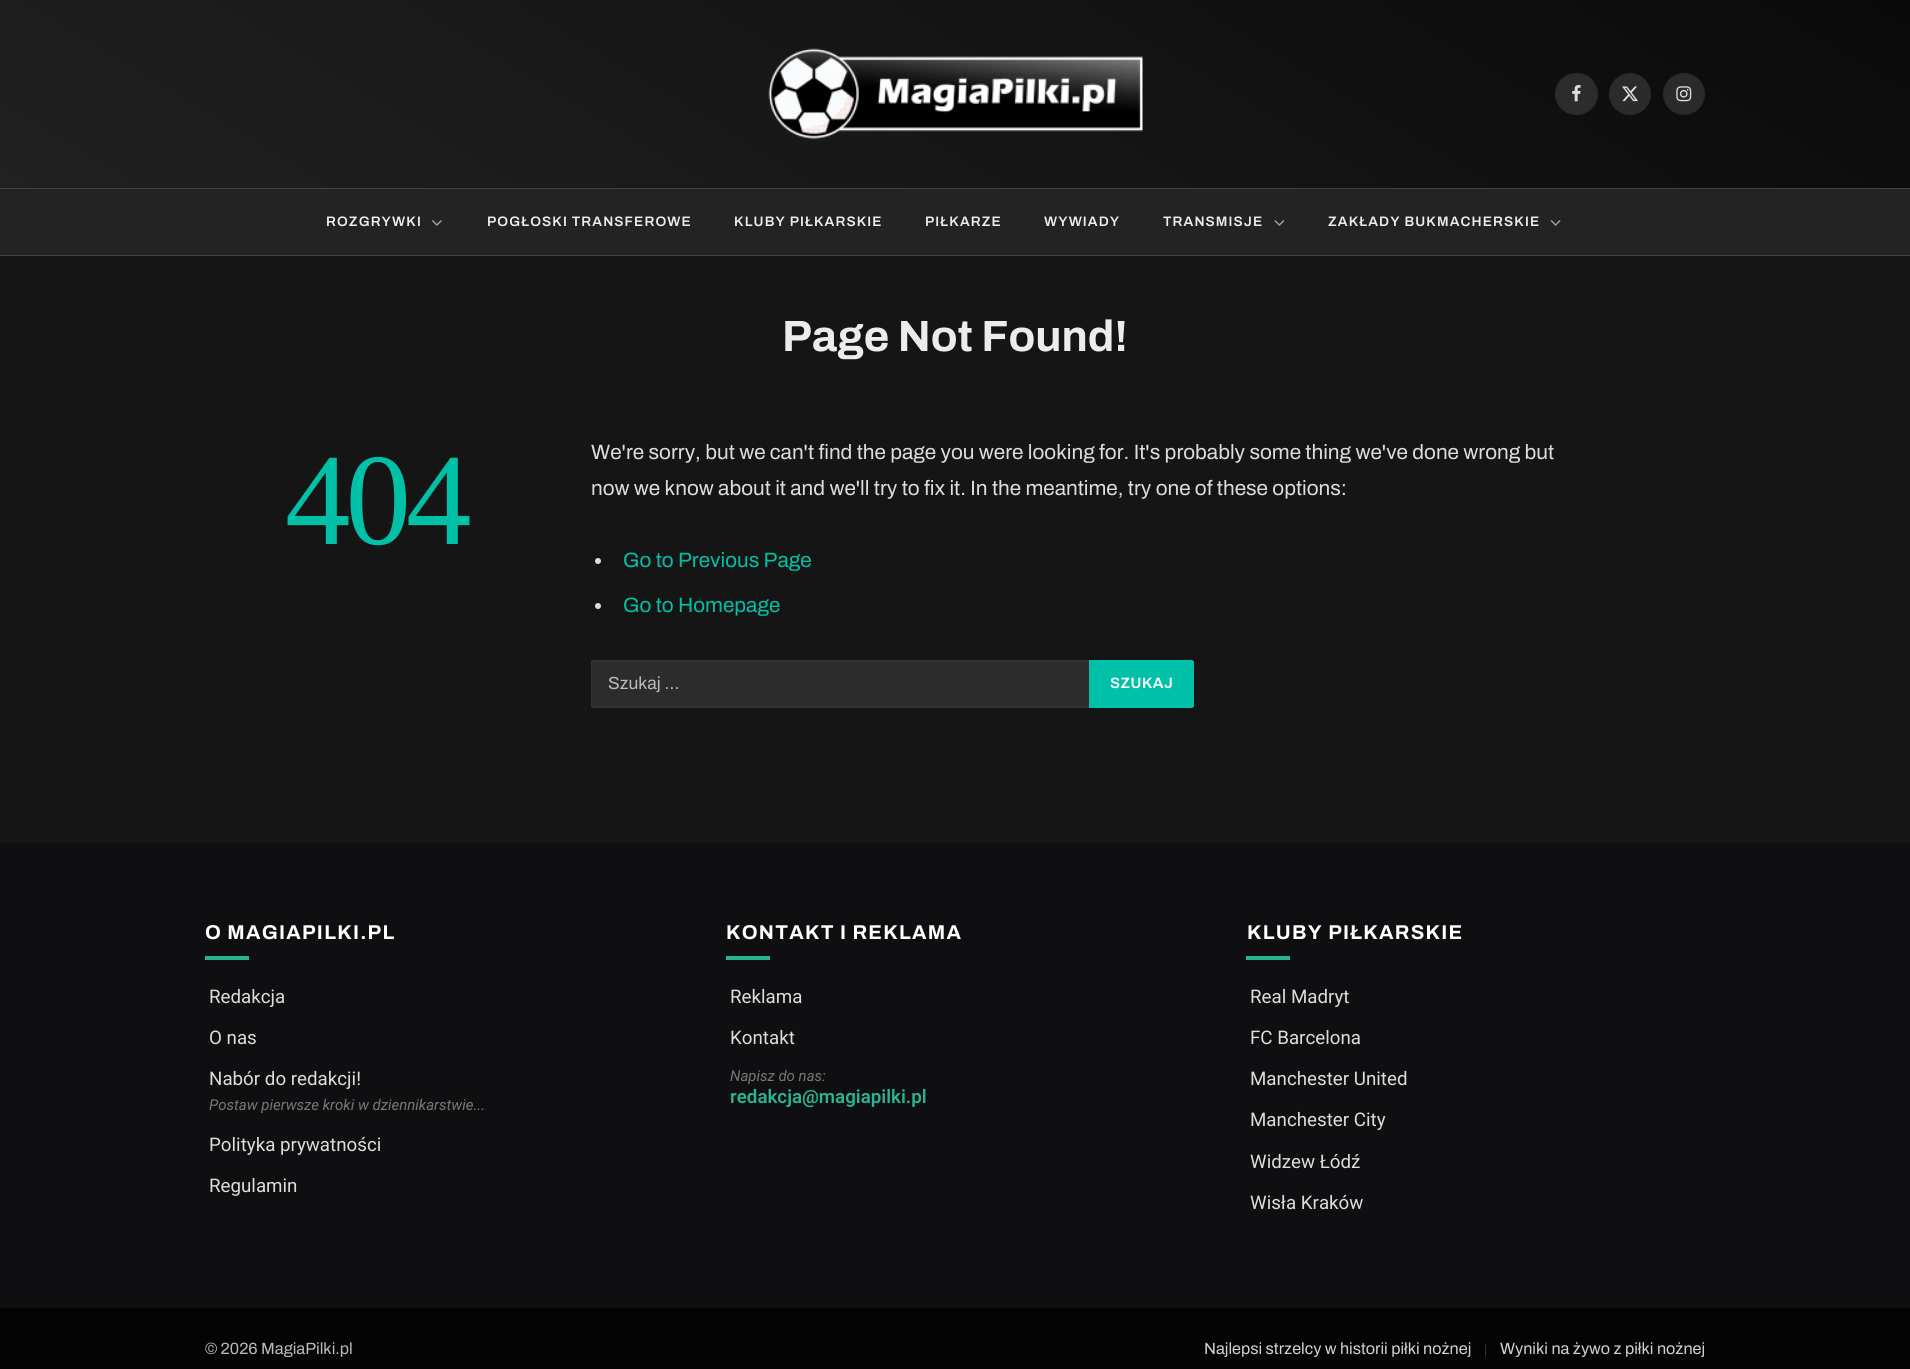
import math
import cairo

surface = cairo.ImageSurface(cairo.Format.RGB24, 1910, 1369)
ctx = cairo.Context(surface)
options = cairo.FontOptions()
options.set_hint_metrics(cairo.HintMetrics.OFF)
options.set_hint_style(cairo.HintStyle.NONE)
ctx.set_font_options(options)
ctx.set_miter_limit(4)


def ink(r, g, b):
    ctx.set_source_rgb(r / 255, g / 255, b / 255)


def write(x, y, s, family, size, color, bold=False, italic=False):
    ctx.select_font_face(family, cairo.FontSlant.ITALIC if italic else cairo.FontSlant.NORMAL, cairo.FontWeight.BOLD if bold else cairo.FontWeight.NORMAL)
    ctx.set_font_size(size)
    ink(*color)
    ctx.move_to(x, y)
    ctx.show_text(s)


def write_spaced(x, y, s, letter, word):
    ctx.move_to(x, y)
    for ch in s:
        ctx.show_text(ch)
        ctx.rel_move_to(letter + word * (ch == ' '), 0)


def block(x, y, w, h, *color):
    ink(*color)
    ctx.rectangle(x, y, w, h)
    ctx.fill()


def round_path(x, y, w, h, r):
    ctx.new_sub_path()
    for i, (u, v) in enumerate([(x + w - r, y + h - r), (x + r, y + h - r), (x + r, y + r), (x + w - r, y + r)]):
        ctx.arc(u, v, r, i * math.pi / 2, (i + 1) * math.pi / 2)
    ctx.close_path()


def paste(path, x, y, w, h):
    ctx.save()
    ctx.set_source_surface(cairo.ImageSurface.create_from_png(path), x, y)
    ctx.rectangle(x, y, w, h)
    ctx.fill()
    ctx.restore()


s1 = dict(family="Archivo", size=43.75, color=(236, 236, 236), bold=True)
s2 = dict(family="Archivo", size=20.75, color=(221, 221, 221))
s3 = dict(family="Archivo", size=20.75, color=(0, 193, 167))
s4 = dict(family="Archivo", size=17.5, color=(187, 187, 187))
s5 = dict(family="Roboto", size=18.75, color=(221, 221, 221))
s6 = dict(family="Roboto", size=15, color=(119, 119, 119), italic=True)
s7 = dict(family="Roboto SemiBold", size=18.75, color=(42, 179, 145))
s8 = dict(family="Archivo", size=16.25, color=(187, 187, 187))
s9 = dict(family="Archivo", size=16.25, color=(209, 209, 209))
s10 = dict(family="Archivo", size=13, color=(59, 59, 59))

ink(21, 21, 22)
ctx.paint()
gradient = cairo.LinearGradient(660, 584, 1250, -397)
gradient.add_color_stop_rgba(0, 0.129, 0.129, 0.129, 1)
gradient.add_color_stop_rgba(1, 0.039, 0.039, 0.039, 1)
ctx.set_source(gradient)
ctx.rectangle(0, 0, 1910, 188)
ctx.fill()
paste("pic1.png", 768, 48, 375, 91)
ink(44, 44, 44)
round_path(1555, 73, 43, 42, 21)
ctx.fill()
round_path(1555.5, 73.5, 42, 41, 20.5)
ctx.set_source_rgba(0, 0, 0, 0.09)
ctx.set_line_width(1)
ctx.stroke()
paste("pic2.png", 1572, 85, 9, 17)
ink(43, 43, 43)
ctx.arc(1630, 94, 21, 0, 2 * math.pi)
ctx.fill()
ctx.arc(1630, 94, 20.5, 0, 2 * math.pi)
ctx.set_source_rgba(0, 0, 0, 0.09)
ctx.stroke()
paste("pic3.png", 1622, 86, 16, 16)
ink(43, 43, 43)
ctx.arc(1684, 94, 21, 0, 2 * math.pi)
ctx.fill()
ctx.arc(1684, 94, 20.5, 0, 2 * math.pi)
ctx.set_source_rgba(0, 0, 0, 0.09)
ctx.stroke()
paste("pic4.png", 1676, 86, 16, 16)
block(0, 189, 1910, 66, 35, 35, 35)
block(0, 188, 1910, 1, 66, 66, 66)
block(0, 255, 1910, 1, 66, 66, 66)
ctx.select_font_face("Archivo SemiBold")
ctx.set_font_size(13.75)
ink(236, 236, 236)
write_spaced(326, 226, "ROZGRYWKI", 1.1, 0)
paste("pic5.png", 432, 220, 10, 6)
write_spaced(487, 226, "POGŁOSKI TRANSFEROWE", 1.1, 0)
write_spaced(734, 226, "KLUBY PIŁKARSKIE", 1.1, 0)
write_spaced(925, 226, "PIŁKARZE", 1.1, 0)
write_spaced(1044, 226, "WYWIADY", 1.1, 0)
write_spaced(1163, 226, "TRANSMISJE", 1.1, 0)
paste("pic6.png", 1274, 220, 11, 6)
write_spaced(1328, 226, "ZAKŁADY BUKMACHERSKIE", 1.1, 0)
paste("pic7.png", 1550, 220, 11, 6)
write(782, 351, "Page Not Found!", **s1)
ctx.select_font_face("Liberation Serif")
ctx.set_font_size(131)
ink(0, 193, 167)
write_spaced(285, 544, "404", -5, 0)
write(591, 459, "We're sorry, but we can't find the page you were looking for. It's probably some thing we've done wrong but", **s2)
write(591, 495, "now we know about it and we'll try to fix it. In the meantime, try one of these options:", **s2)
ctx.new_path()
ctx.arc(598, 561, 3, 0, 2 * math.pi)
ctx.fill()
write(623, 567, "Go to Previous Page", **s3)
ink(221, 221, 221)
ctx.new_path()
ctx.arc(598, 606, 3, 0, 2 * math.pi)
ctx.fill()
write(623, 612, "Go to Homepage", **s3)
ink(44, 44, 45)
round_path(591.5, 660.5, 499, 47, 2)
ctx.fill_preserve()
ink(51, 51, 51)
ctx.stroke()
write(608, 689, "Szukaj …", **s4)
ink(0, 193, 167)
ctx.new_path()
ctx.move_to(1089, 660)
ctx.line_to(1191.5, 660)
ctx.curve_to(1193, 660, 1194, 661, 1194, 662.5)
ctx.line_to(1194, 705.5)
ctx.curve_to(1194, 707, 1193, 708, 1191.5, 708)
ctx.line_to(1089, 708)
ctx.close_path()
ctx.fill()
ctx.select_font_face("Archivo SemiBold")
ctx.set_font_size(15)
ink(255, 255, 255)
write_spaced(1110, 688, "SZUKAJ", 0.5, 0)
block(0, 843, 1910, 465, 15, 15, 17)
ctx.select_font_face("Archivo", cairo.FontSlant.NORMAL, cairo.FontWeight.BOLD)
ctx.set_font_size(20)
ink(255, 255, 255)
write_spaced(205, 939, "O MAGIAPILKI.PL", 1.25, 0)
block(205, 956, 44, 4, 42, 179, 145)
write(209, 1003, "Redakcja", **s5)
write(209, 1044, "O nas", **s5)
write(209, 1085, "Nabór do redakcji!", **s5)
write(209, 1110, "Postaw pierwsze kroki w dziennikarstwie...", **s6)
write(209, 1151, "Polityka prywatności", **s5)
write(209, 1192, "Regulamin", **s5)
ctx.select_font_face("Archivo", cairo.FontSlant.NORMAL, cairo.FontWeight.BOLD)
ctx.set_font_size(20)
ink(255, 255, 255)
write_spaced(726, 939, "KONTAKT I REKLAMA", 1.25, 0)
block(726, 956, 44, 4, 42, 179, 145)
write(730, 1003, "Reklama", **s5)
write(730, 1044, "Kontakt", **s5)
write(730, 1081, "Napisz do nas:", **s6)
write(730, 1103, "redakcja@magiapilki.pl", **s7)
ctx.select_font_face("Archivo", cairo.FontSlant.NORMAL, cairo.FontWeight.BOLD)
ctx.set_font_size(20)
ink(255, 255, 255)
write_spaced(1247, 939, "KLUBY PIŁKARSKIE", 1.25, 0)
block(1246, 956, 44, 4, 42, 179, 145)
write(1250, 1003, "Real Madryt", **s5)
write(1250, 1044, "FC Barcelona", **s5)
write(1250, 1085, "Manchester United", **s5)
write(1250, 1126, "Manchester City", **s5)
write(1250, 1168, "Widzew Łódź", **s5)
write(1250, 1209, "Wisła Kraków", **s5)
block(0, 1308, 1910, 61, 4, 4, 4)
write(205, 1354, "© 2026 MagiaPilki.pl", **s8)
write(1204, 1354, "Najlepsi strzelcy w historii piłki nożnej", **s9)
write(1484, 1354, "|", **s10)
write(1500, 1354, "Wyniki na żywo z piłki nożnej", **s9)
surface.write_to_png("screenshot.png")
